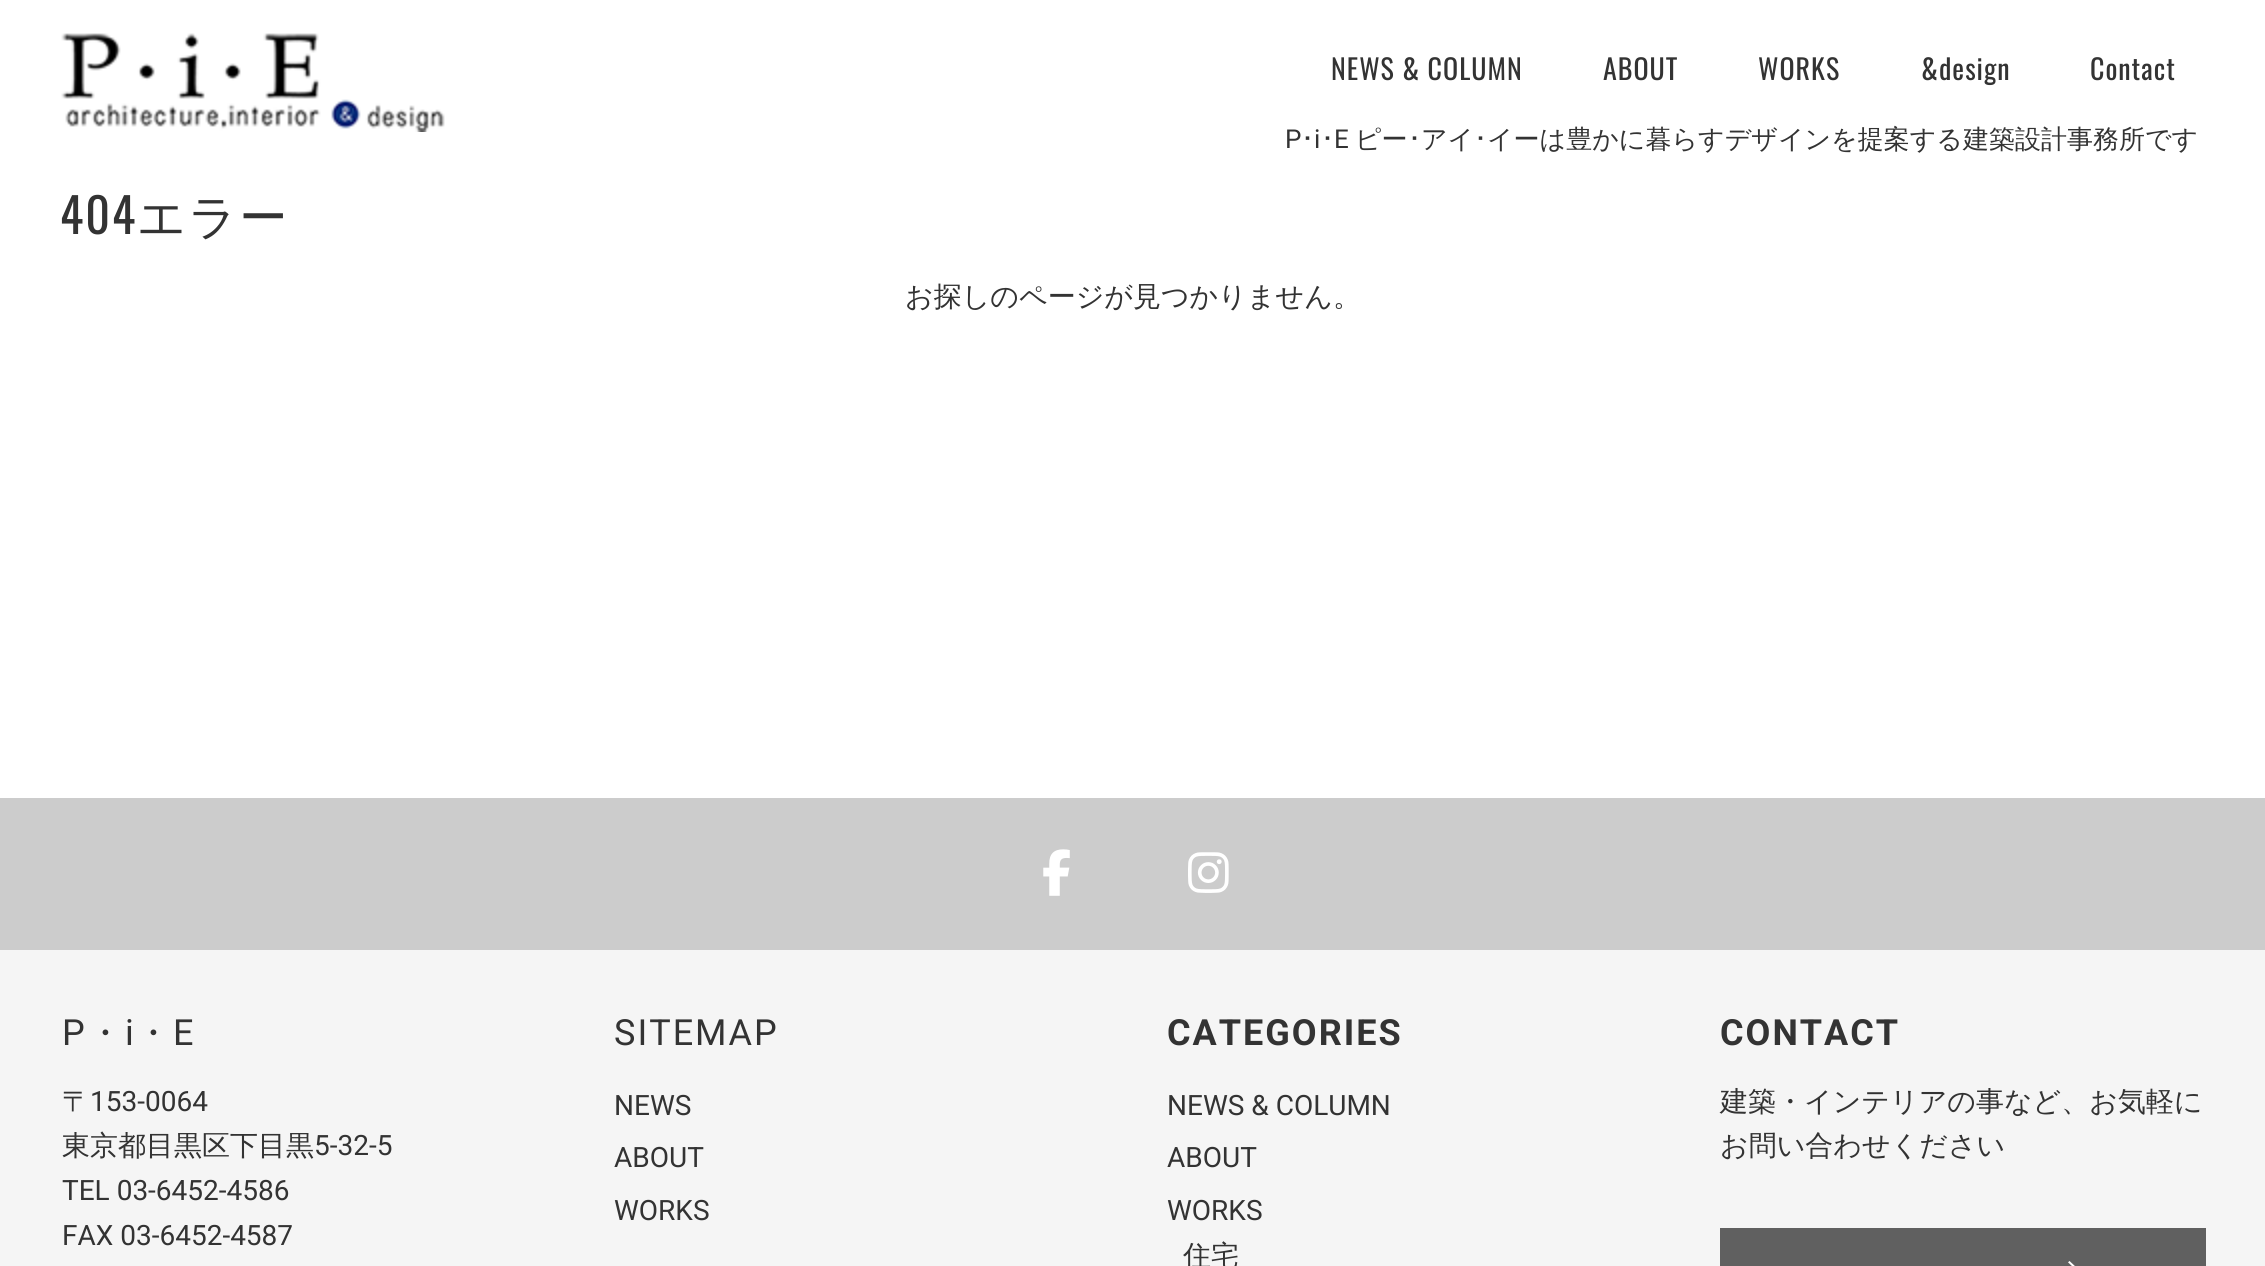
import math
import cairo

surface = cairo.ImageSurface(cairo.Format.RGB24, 2265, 1266)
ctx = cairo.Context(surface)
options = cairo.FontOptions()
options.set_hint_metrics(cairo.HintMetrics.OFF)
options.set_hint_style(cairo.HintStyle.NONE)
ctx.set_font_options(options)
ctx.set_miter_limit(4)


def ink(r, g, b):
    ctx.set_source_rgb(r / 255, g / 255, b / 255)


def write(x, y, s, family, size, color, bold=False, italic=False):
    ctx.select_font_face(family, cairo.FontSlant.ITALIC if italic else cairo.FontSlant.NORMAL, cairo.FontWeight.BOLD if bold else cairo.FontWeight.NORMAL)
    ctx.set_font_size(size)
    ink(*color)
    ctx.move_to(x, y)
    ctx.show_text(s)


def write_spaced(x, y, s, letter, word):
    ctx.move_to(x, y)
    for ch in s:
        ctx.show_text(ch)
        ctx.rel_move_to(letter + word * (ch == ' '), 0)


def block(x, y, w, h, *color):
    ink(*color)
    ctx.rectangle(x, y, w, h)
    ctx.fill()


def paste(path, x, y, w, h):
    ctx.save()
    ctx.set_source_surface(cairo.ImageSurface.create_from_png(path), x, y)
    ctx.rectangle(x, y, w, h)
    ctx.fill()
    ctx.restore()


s1 = dict(family="Roboto", size=26, color=(51, 51, 51))
s2 = dict(family="IPAPGothic", size=26, color=(51, 51, 51))
s3 = dict(family="WenQuanYi Zen Hei Medium", size=26, color=(51, 51, 51))
s4 = dict(family="WenQuanYi Zen Hei Medium", size=28, color=(51, 51, 51))
s5 = dict(family="Roboto", size=28, color=(51, 51, 51))

ink(255, 255, 255)
ctx.paint()
paste("pic1.png", 61, 33, 384, 99)
ctx.select_font_face("Oswald")
ctx.set_font_size(28)
ink(51, 51, 51)
write_spaced(1331, 80, "NEWS & COLUMN", 1, 0)
write_spaced(1603, 80, "ABOUT", 1, 0)
write_spaced(1758, 80, "WORKS", 1, 0)
write_spaced(1921, 80, "&design", 1, 0)
write_spaced(2090, 80, "Contact", 1, 0)
write(1285, 148, "P", **s1)
write(1301, 148, "･", **s2)
write(1314, 148, "i", **s1)
write(1321, 148, "･", **s2)
write(1334, 148, "E", **s1)
write(1355, 148, "ピー", **s3)
write(1408, 148, "･", **s2)
write(1421, 148, "アイ", **s3)
write(1474, 148, "･", **s2)
write(1487, 148, "イーは豊かに暮らすデザインを提案する建築設計事務所です", **s3)
ctx.select_font_face("Oswald")
ctx.set_font_size(48)
write_spaced(60, 234, "404", 2, 0)
ctx.select_font_face("WenQuanYi Zen Hei Medium")
write_spaced(137, 234, "エラー", 2, 0)
write(905, 306, "お探しのページが見つかりません。", **s4)
block(0, 798, 2265, 152, 204, 204, 204)
paste("pic2.png", 1043, 849, 27, 47)
paste("pic3.png", 1188, 852, 41, 41)
block(0, 950, 2265, 316, 245, 245, 245)
ctx.select_font_face("Roboto")
ctx.set_font_size(36)
ink(51, 51, 51)
write_spaced(62, 1045, "P", 2, 0)
ctx.select_font_face("WenQuanYi Zen Hei Medium")
write_spaced(87, 1045, "・", 2, 0)
ctx.select_font_face("Roboto")
write_spaced(125, 1045, "i", 2, 0)
ctx.select_font_face("WenQuanYi Zen Hei Medium")
write_spaced(135, 1045, "・", 2, 0)
ctx.select_font_face("Roboto")
write_spaced(173, 1045, "E", 2, 0)
write(62, 1111, "〒", **s4)
write(90, 1111, "153-0064", **s5)
write(62, 1155, "東京都目黒区下目黒", **s4)
write(314, 1155, "5-32-5", **s5)
write(62, 1200, "TEL 03-6452-4586", **s5)
write(62, 1245, "FAX 03-6452-4587", **s5)
ctx.set_font_size(36)
write_spaced(614, 1045, "SITEMAP", 2, 0)
write(614, 1115, "NEWS", **s5)
write(614, 1167, "ABOUT", **s5)
write(614, 1220, "WORKS", **s5)
ctx.select_font_face("Roboto", cairo.FontSlant.NORMAL, cairo.FontWeight.BOLD)
ctx.set_font_size(36)
write_spaced(1167, 1045, "CATEGORIES", 2, 0)
write(1167, 1115, "NEWS & COLUMN", **s5)
write(1167, 1167, "ABOUT", **s5)
write(1167, 1220, "WORKS", **s5)
write(1183, 1265, "住宅", **s4)
ctx.select_font_face("Roboto", cairo.FontSlant.NORMAL, cairo.FontWeight.BOLD)
ctx.set_font_size(36)
write_spaced(1720, 1045, "CONTACT", 2, 0)
write(1720, 1111, "建築・インテリアの事など、お気軽に", **s4)
write(1720, 1155, "お問い合わせください", **s4)
block(1720, 1228, 486, 38, 96, 96, 96)
paste("pic4.png", 2068, 1261, 7, 5)
surface.write_to_png("screenshot.png")
